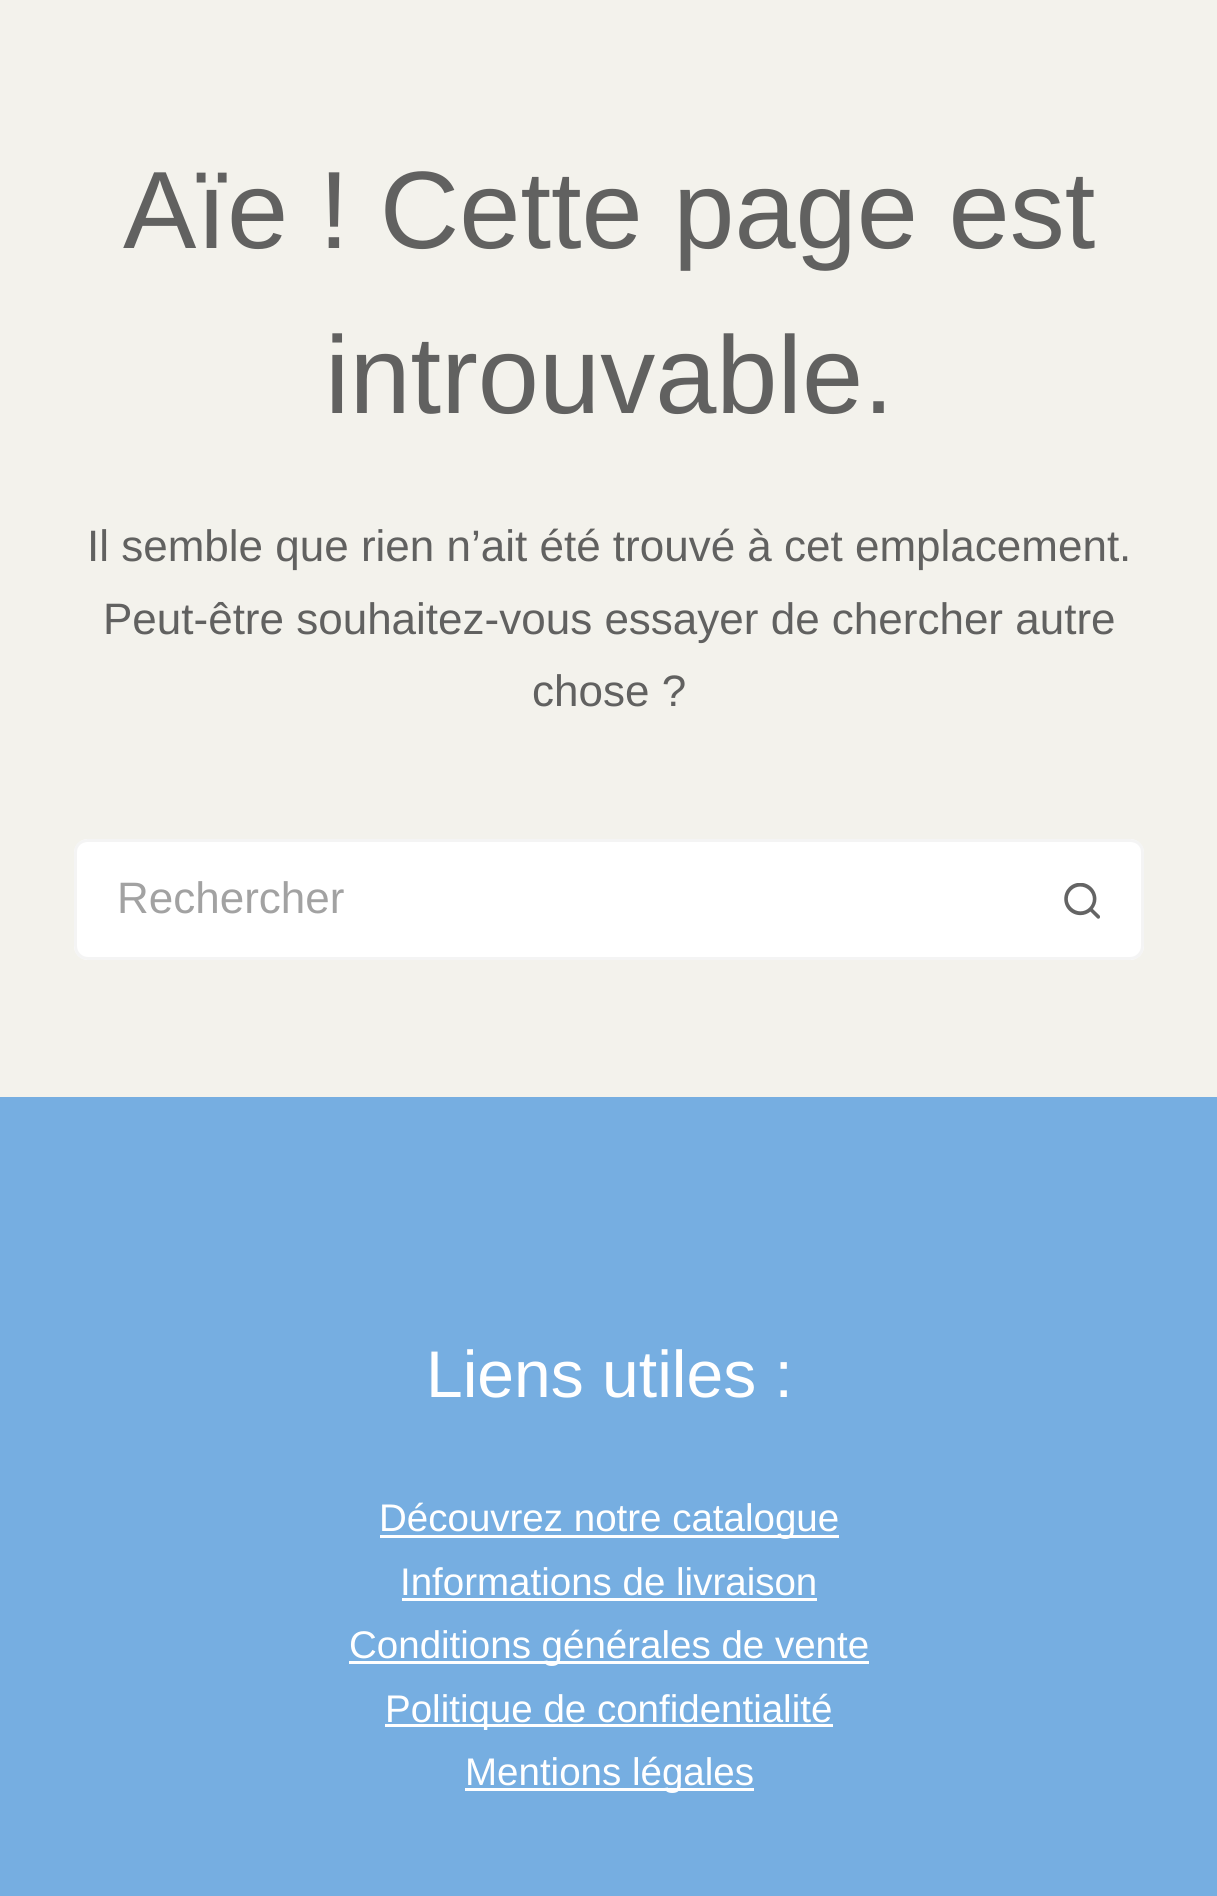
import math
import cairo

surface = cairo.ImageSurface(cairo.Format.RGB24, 1217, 1896)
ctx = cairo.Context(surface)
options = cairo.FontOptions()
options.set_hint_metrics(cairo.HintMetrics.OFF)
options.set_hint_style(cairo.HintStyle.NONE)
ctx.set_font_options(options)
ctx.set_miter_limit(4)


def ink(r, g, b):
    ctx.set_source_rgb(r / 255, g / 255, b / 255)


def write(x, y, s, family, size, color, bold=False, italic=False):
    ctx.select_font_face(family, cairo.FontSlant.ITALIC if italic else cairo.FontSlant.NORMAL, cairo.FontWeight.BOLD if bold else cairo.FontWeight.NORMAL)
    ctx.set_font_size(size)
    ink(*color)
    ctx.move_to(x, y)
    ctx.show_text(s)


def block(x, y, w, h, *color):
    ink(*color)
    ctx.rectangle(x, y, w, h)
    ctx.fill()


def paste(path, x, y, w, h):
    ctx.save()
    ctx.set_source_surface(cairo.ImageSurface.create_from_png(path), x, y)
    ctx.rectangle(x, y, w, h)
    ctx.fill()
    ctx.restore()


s1 = dict(family="Liberation Sans", size=110, color=(97, 97, 96))
s2 = dict(family="Liberation Sans", size=44, color=(97, 97, 96))
s3 = dict(family="Liberation Sans", size=44, color=(162, 162, 162))
s4 = dict(family="Liberation Sans", size=66, color=(255, 255, 255))
s5 = dict(family="Liberation Sans", size=38.5, color=(255, 255, 255))

ink(243, 242, 236)
ctx.paint()
write(123, 248, "Aïe ! Cette page est", **s1)
write(325, 413, "introuvable.", **s1)
write(87, 561, "Il semble que rien n’ait été trouvé à cet emplacement.", **s2)
write(103, 634, "Peut-être souhaitez-vous essayer de chercher autre", **s2)
write(532, 706, "chose ?", **s2)
ink(255, 255, 255)
ctx.new_path()
ctx.move_to(88, 839)
ctx.line_to(1023, 839)
ctx.line_to(1023, 960)
ctx.line_to(88, 960)
ctx.curve_to(80.5, 960, 74, 953.5, 74, 946)
ctx.line_to(74, 853)
ctx.curve_to(74, 845.5, 80.5, 839, 88, 839)
ctx.close_path()
ctx.fill()
ink(244, 244, 244)
ctx.set_fill_rule(cairo.FillRule.EVEN_ODD)
ctx.new_path()
ctx.move_to(88, 839)
ctx.line_to(1023, 839)
ctx.line_to(1023, 960)
ctx.line_to(88, 960)
ctx.curve_to(80, 960, 74, 954, 74, 946)
ctx.line_to(74, 852)
ctx.curve_to(74, 845, 80, 839, 88, 839)
ctx.close_path()
ctx.move_to(88, 842)
ctx.line_to(1023, 842)
ctx.line_to(1023, 957)
ctx.line_to(88, 957)
ctx.curve_to(82, 957, 77, 952, 77, 946)
ctx.line_to(77, 852)
ctx.curve_to(77, 846, 82, 842, 88, 842)
ctx.close_path()
ctx.fill()
write(117, 913, "Rechercher", **s3)
ink(255, 255, 255)
ctx.new_path()
ctx.move_to(1023, 839)
ctx.line_to(1130, 839)
ctx.curve_to(1137.5, 839, 1144, 845.5, 1144, 853)
ctx.line_to(1144, 946)
ctx.curve_to(1144, 953.5, 1137.5, 960, 1130, 960)
ctx.line_to(1023, 960)
ctx.close_path()
ctx.fill()
ink(244, 244, 244)
ctx.new_path()
ctx.move_to(1023, 839)
ctx.line_to(1130, 839)
ctx.curve_to(1138, 839, 1144, 845, 1144, 852)
ctx.line_to(1144, 946)
ctx.curve_to(1144, 954, 1138, 960, 1130, 960)
ctx.line_to(1023, 960)
ctx.close_path()
ctx.move_to(1023, 842)
ctx.line_to(1130, 842)
ctx.curve_to(1136, 842, 1141, 846, 1141, 852)
ctx.line_to(1141, 946)
ctx.curve_to(1141, 952, 1136, 957, 1130, 957)
ctx.line_to(1023, 957)
ctx.close_path()
ctx.fill()
paste("pic1.png", 1064, 883, 36, 36)
block(0, 1097, 1217, 799, 118, 174, 225)
write(426, 1397, "Liens utiles :", **s4)
block(380, 1535, 459, 3, 255, 255, 255)
write(379, 1531, "Découvrez notre catalogue", **s5)
write(400, 1595, "Informations de livraison", **s5)
block(402, 1598, 415, 3, 255, 255, 255)
block(349, 1661, 520, 3, 255, 255, 255)
write(349, 1658, "Conditions générales de vente", **s5)
block(385, 1724, 448, 3, 255, 255, 255)
write(385, 1722, "Politique de confidentialité", **s5)
block(465, 1788, 289, 3, 255, 255, 255)
write(465, 1785, "Mentions légales", **s5)
surface.write_to_png("screenshot.png")
